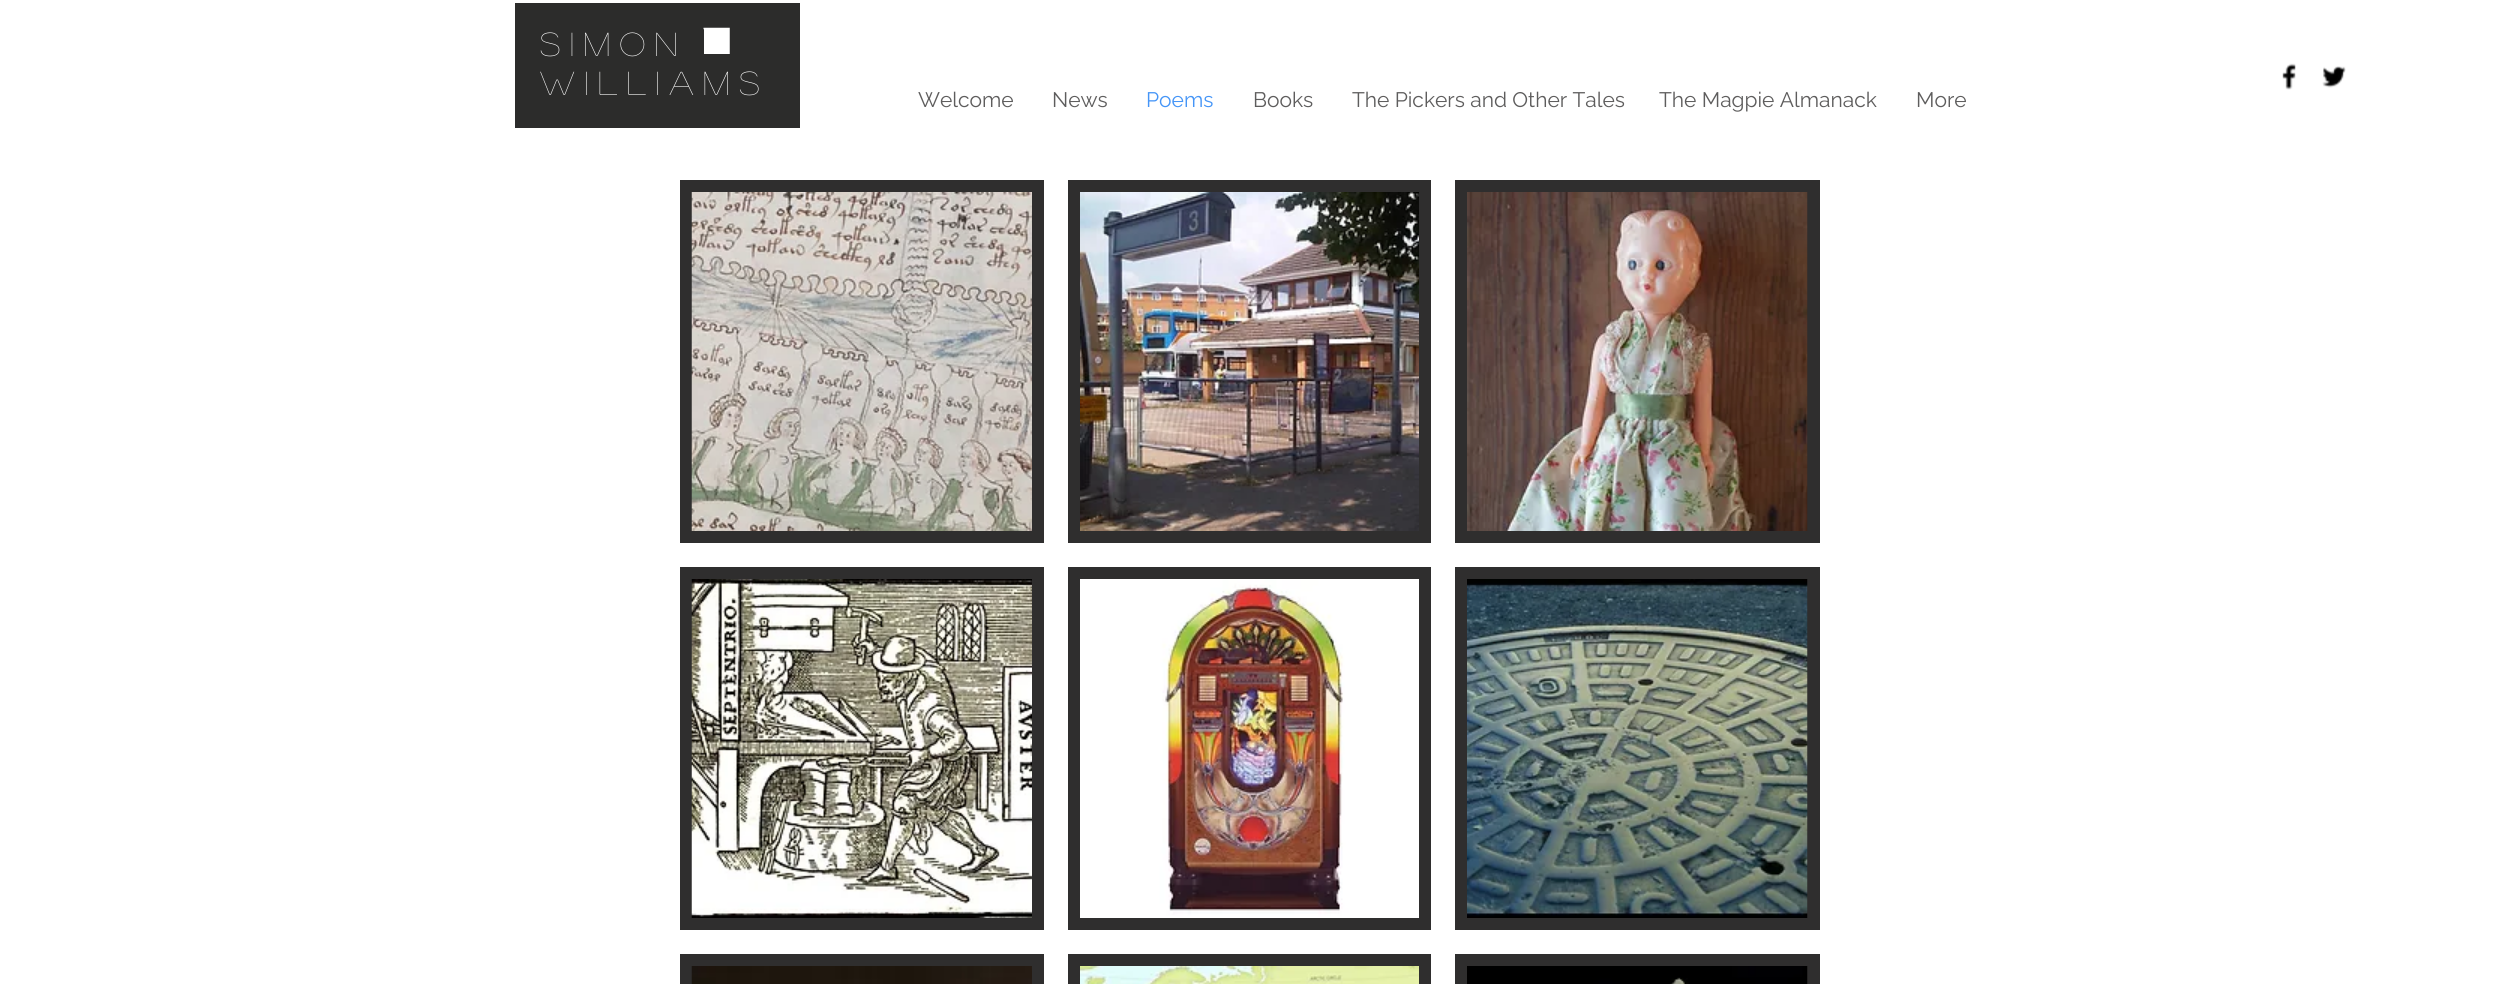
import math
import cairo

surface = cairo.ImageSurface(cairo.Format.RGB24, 2498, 984)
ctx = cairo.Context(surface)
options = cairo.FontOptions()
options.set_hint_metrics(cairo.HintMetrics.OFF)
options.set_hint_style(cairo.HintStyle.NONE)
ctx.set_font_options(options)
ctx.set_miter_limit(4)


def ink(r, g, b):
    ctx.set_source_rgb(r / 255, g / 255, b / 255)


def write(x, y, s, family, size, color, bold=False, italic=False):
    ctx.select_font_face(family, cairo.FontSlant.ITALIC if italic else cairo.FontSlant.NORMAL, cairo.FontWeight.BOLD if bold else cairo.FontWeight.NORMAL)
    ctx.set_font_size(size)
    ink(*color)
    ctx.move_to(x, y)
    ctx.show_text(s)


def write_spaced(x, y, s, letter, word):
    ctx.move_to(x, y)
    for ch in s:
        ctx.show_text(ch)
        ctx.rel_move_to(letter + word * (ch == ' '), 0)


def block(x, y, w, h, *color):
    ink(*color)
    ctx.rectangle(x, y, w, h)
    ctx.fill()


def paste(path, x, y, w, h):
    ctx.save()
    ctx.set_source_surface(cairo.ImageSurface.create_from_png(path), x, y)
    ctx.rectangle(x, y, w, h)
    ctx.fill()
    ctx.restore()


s1 = dict(family="Raleway", size=21, color=(94, 93, 93))
s2 = dict(family="Raleway", size=21, color=(69, 149, 247))

ink(255, 255, 255)
ctx.paint()
block(515, 3, 285, 125, 44, 44, 43)
block(704, 29, 25, 25, 255, 255, 255)
ctx.new_path()
ctx.move_to(703.5, 28.5)
ctx.line_to(729, 28.5)
ctx.line_to(729, 54)
ctx.line_to(729, 28.5)
ctx.close_path()
ctx.set_line_width(1.5)
ctx.stroke()
ctx.select_font_face("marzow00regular")
ctx.set_font_size(33)
write_spaced(540, 56, "simon", 10, 0)
write_spaced(540, 95, "williams", 10, 0)
paste("pic1.png", 2282, 63, 14, 27)
paste("pic2.png", 2322, 66, 24, 22)
write(918, 107, "Welcome", **s1)
write(1052, 107, "News", **s1)
write(1146, 107, "Poems", **s2)
write(1253, 107, "Books", **s1)
write(1352, 107, "The Pickers and Other Tales", **s1)
write(1659, 107, "The Magpie Almanack", **s1)
write(1916, 107, "More", **s1)
block(680, 180, 364, 363, 47, 46, 46)
paste("pic3.png", 691, 192, 341, 339)
block(1068, 180, 363, 363, 47, 46, 46)
paste("pic4.png", 1080, 192, 339, 339)
block(1455, 180, 365, 363, 47, 46, 46)
paste("pic5.png", 1467, 192, 341, 339)
block(680, 567, 364, 363, 47, 46, 46)
paste("pic6.png", 691, 579, 341, 339)
block(1068, 567, 363, 363, 47, 46, 46)
paste("pic7.png", 1080, 579, 339, 339)
block(1455, 567, 365, 363, 47, 46, 46)
paste("pic8.png", 1467, 579, 341, 339)
block(680, 954, 364, 30, 47, 46, 46)
paste("pic9.png", 691, 966, 341, 18)
block(1068, 954, 363, 30, 47, 46, 46)
paste("pic10.png", 1080, 966, 339, 18)
block(1455, 954, 365, 30, 47, 46, 46)
paste("pic11.png", 1467, 966, 341, 18)
surface.write_to_png("screenshot.png")
